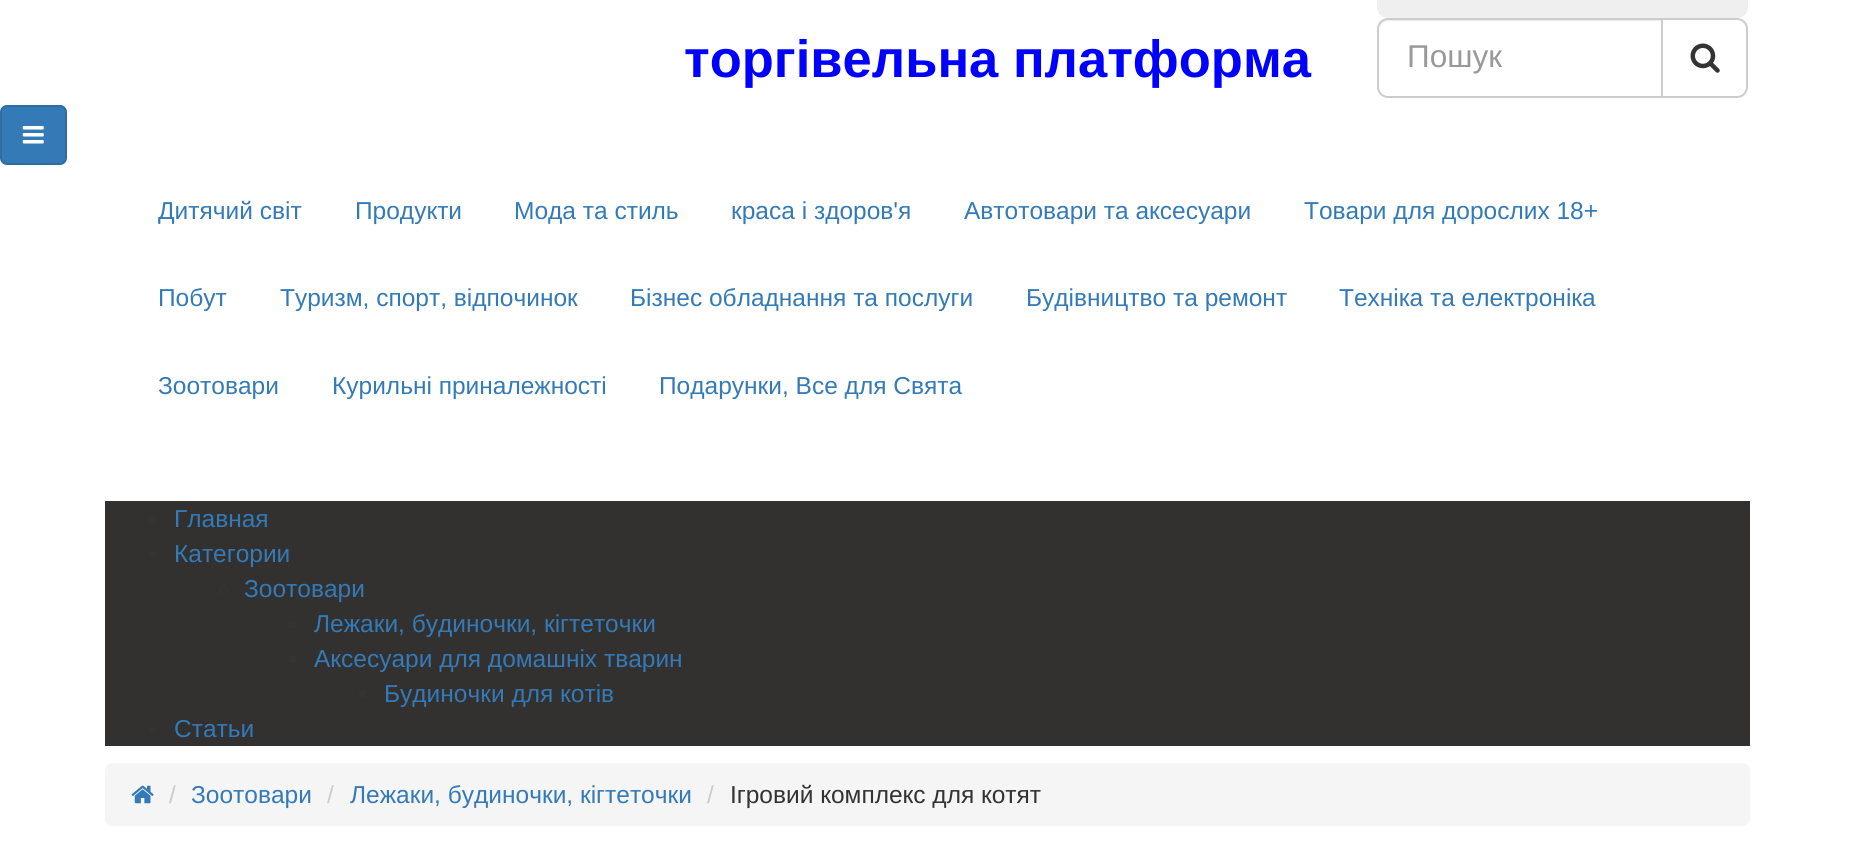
import math
import cairo

surface = cairo.ImageSurface(cairo.Format.RGB24, 1853, 843)
ctx = cairo.Context(surface)
options = cairo.FontOptions()
options.set_hint_metrics(cairo.HintMetrics.OFF)
options.set_hint_style(cairo.HintStyle.NONE)
ctx.set_font_options(options)
ctx.set_miter_limit(4)


def ink(r, g, b):
    ctx.set_source_rgb(r / 255, g / 255, b / 255)


def write(x, y, s, family, size, color, bold=False, italic=False):
    ctx.select_font_face(family, cairo.FontSlant.ITALIC if italic else cairo.FontSlant.NORMAL, cairo.FontWeight.BOLD if bold else cairo.FontWeight.NORMAL)
    ctx.set_font_size(size)
    ink(*color)
    ctx.move_to(x, y)
    ctx.show_text(s)


def block(x, y, w, h, *color):
    ink(*color)
    ctx.rectangle(x, y, w, h)
    ctx.fill()


def round_path(x, y, w, h, r):
    ctx.new_sub_path()
    for i, (u, v) in enumerate([(x + w - r, y + h - r), (x + r, y + h - r), (x + r, y + r), (x + w - r, y + r)]):
        ctx.arc(u, v, r, i * math.pi / 2, (i + 1) * math.pi / 2)
    ctx.close_path()


def paste(path, x, y, w, h):
    ctx.save()
    ctx.set_source_surface(cairo.ImageSurface.create_from_png(path), x, y)
    ctx.rectangle(x, y, w, h)
    ctx.fill()
    ctx.restore()


s1 = dict(family="Liberation Sans", size=52.5, color=(0, 0, 255), bold=True)
s2 = dict(family="Liberation Sans", size=31.5, color=(153, 153, 153))
s3 = dict(family="Liberation Sans", size=24.5, color=(51, 122, 183))
s4 = dict(family="Liberation Sans", size=24.5, color=(204, 204, 204))
s5 = dict(family="Liberation Sans", size=24.5, color=(51, 51, 51))

ink(255, 255, 255)
ctx.paint()
write(684, 77, "торгівельна платформа", **s1)
ink(239, 239, 239)
round_path(1377, -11, 371, 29, 11)
ctx.fill()
ink(236, 236, 236)
ctx.new_path()
ctx.move_to(1388, 21)
ctx.line_to(1661, 21)
ctx.line_to(1661, 19)
ctx.line_to(1388, 19)
ctx.curve_to(1383, 19, 1379, 23, 1379, 28)
ctx.line_to(1379, 30)
ctx.curve_to(1379, 25, 1383, 21, 1388, 21)
ctx.close_path()
ctx.fill()
ctx.new_path()
ctx.move_to(1388, 19)
ctx.line_to(1662, 19)
ctx.line_to(1662, 97)
ctx.line_to(1388, 97)
ctx.curve_to(1382.5, 97, 1378, 92.5, 1378, 87)
ctx.line_to(1378, 29)
ctx.curve_to(1378, 23.5, 1382.5, 19, 1388, 19)
ctx.close_path()
ink(204, 204, 204)
ctx.stroke()
write(1407, 67, "Пошук", **s2)
ink(255, 255, 255)
ctx.new_path()
ctx.move_to(1662, 19)
ctx.line_to(1737, 19)
ctx.curve_to(1742.5, 19, 1747, 23.5, 1747, 29)
ctx.line_to(1747, 87)
ctx.curve_to(1747, 92.5, 1742.5, 97, 1737, 97)
ctx.line_to(1662, 97)
ctx.close_path()
ctx.fill_preserve()
ink(204, 204, 204)
ctx.stroke()
paste("pic1.png", 1690, 43, 30, 30)
ink(51, 122, 183)
round_path(1, 106, 65, 58, 6)
ctx.fill_preserve()
ink(46, 109, 164)
ctx.stroke()
paste("pic2.png", 22, 126, 22, 18)
write(158, 219, "Дитячий світ", **s3)
write(355, 219, "Продукти", **s3)
write(514, 219, "Мода та стиль", **s3)
write(731, 219, "краса і здоров'я", **s3)
write(964, 219, "Автотовари та аксесуари", **s3)
write(1304, 219, "Товари для дорослих 18+", **s3)
write(158, 306, "Побут", **s3)
write(280, 306, "Туризм, спорт, відпочинок", **s3)
write(630, 306, "Бізнес обладнання та послуги", **s3)
write(1026, 306, "Будівництво та ремонт", **s3)
write(1339, 306, "Техніка та електроніка", **s3)
write(158, 394, "Зоотовари", **s3)
write(332, 394, "Курильні приналежності", **s3)
write(659, 394, "Подарунки, Все для Свята", **s3)
block(105, 501, 1645, 245, 51, 48, 48)
ink(51, 51, 51)
ctx.new_path()
ctx.arc(152.5, 519.5, 3.5, 0, 2 * math.pi)
ctx.fill()
write(174, 527, "Главная", **s3)
ink(51, 51, 51)
ctx.new_path()
ctx.arc(152.5, 554.5, 3.5, 0, 2 * math.pi)
ctx.fill()
write(174, 562, "Категории", **s3)
ctx.new_path()
ctx.arc(223.5, 590.5, 3.5, 0, 2 * math.pi)
ink(51, 51, 51)
ctx.stroke()
write(244, 597, "Зоотовари", **s3)
block(289, 621, 7, 7, 51, 51, 51)
write(314, 632, "Лежаки, будиночки, кігтеточки", **s3)
block(289, 656, 7, 7, 51, 51, 51)
write(314, 667, "Аксесуари для домашніх тварин", **s3)
block(359, 691, 7, 7, 51, 51, 51)
write(384, 702, "Будиночки для котів", **s3)
ink(51, 51, 51)
ctx.new_path()
ctx.arc(152.5, 729.5, 3.5, 0, 2 * math.pi)
ctx.fill()
write(174, 737, "Статьи", **s3)
ink(245, 245, 245)
round_path(105, 763, 1645, 63, 7)
ctx.fill()
paste("pic3.png", 131, 785, 23, 19)
write(169, 803, "/", **s4)
write(191, 803, "Зоотовари", **s3)
write(327, 803, "/", **s4)
write(350, 803, "Лежаки, будиночки, кігтеточки", **s3)
write(707, 803, "/", **s4)
write(730, 803, "Ігровий комплекс для котят", **s5)
surface.write_to_png("screenshot.png")
